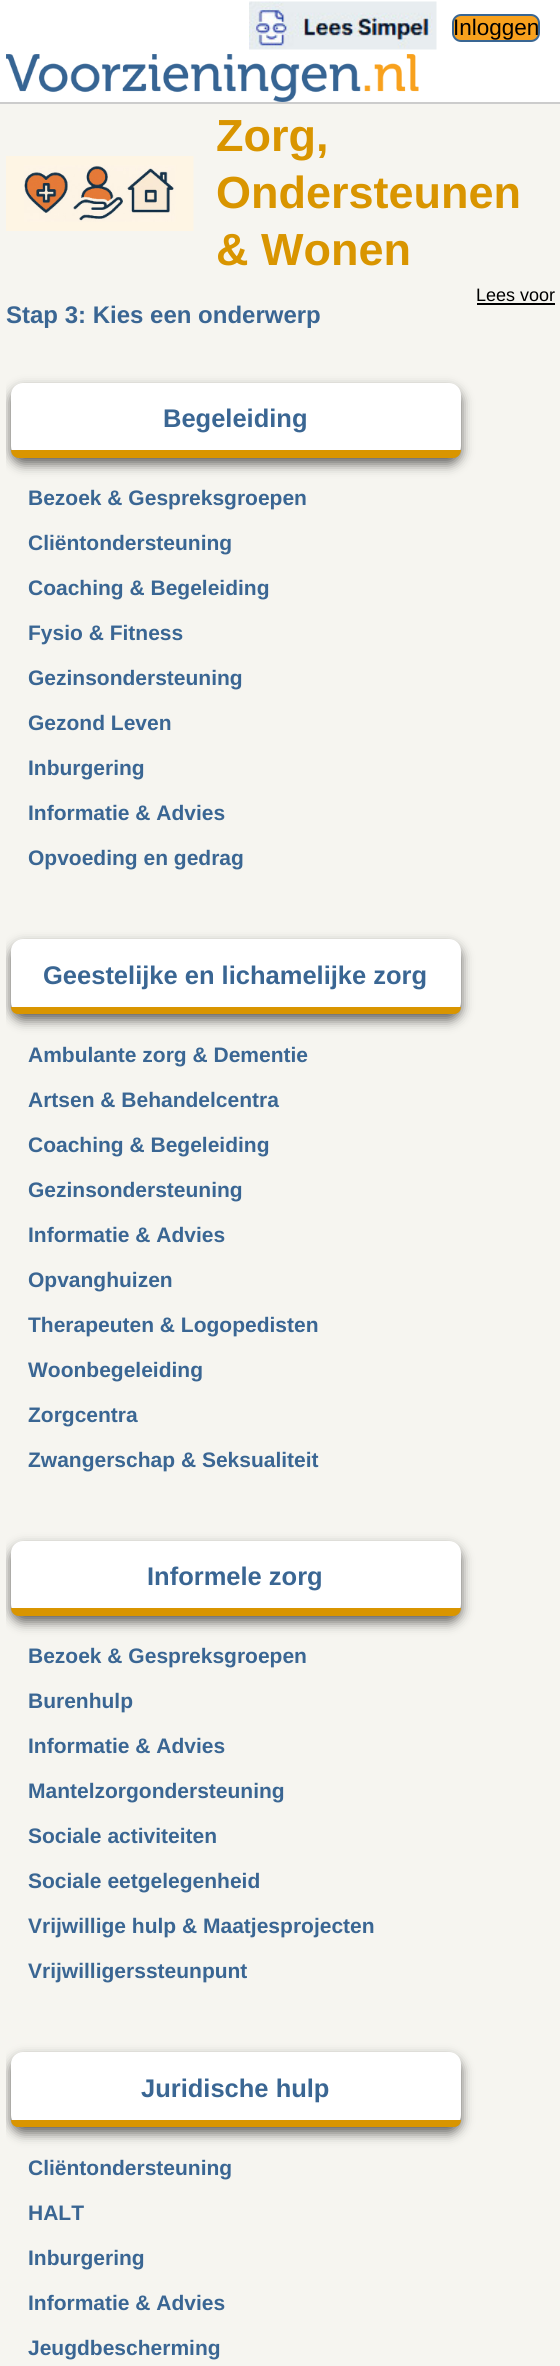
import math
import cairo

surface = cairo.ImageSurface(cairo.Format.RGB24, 560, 2366)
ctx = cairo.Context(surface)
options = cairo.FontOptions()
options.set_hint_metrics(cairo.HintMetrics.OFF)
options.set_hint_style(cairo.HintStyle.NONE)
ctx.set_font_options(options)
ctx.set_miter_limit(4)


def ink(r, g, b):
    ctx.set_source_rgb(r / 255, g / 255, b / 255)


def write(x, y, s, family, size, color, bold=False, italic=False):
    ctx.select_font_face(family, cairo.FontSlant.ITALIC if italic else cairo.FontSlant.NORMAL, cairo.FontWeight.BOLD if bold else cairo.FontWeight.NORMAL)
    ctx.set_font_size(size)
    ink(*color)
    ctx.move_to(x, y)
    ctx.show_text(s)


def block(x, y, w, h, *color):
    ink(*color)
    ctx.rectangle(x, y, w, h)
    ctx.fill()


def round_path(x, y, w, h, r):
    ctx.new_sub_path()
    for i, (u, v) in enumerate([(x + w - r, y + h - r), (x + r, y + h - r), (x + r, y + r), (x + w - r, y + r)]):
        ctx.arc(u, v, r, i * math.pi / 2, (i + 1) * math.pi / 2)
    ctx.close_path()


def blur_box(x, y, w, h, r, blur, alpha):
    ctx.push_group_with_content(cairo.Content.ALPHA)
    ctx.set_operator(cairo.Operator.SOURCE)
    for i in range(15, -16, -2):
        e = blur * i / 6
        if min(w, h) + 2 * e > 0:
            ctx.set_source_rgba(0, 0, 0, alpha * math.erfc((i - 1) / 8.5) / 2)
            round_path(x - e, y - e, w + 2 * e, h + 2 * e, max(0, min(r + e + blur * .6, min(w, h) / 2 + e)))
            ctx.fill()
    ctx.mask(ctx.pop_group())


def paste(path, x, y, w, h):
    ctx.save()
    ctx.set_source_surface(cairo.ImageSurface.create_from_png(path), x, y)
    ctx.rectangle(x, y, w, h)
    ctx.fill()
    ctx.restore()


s1 = dict(family="Liberation Sans", size=22.5, color=(0, 0, 0))
s2 = dict(family="Liberation Sans", size=45, color=(217, 149, 0), bold=True)
s3 = dict(family="Liberation Sans", size=18, color=(0, 0, 0))
s4 = dict(family="Liberation Sans", size=24, color=(58, 102, 147), bold=True)
s5 = dict(family="Liberation Sans", size=25.5, color=(58, 102, 147), bold=True)
s6 = dict(family="Liberation Sans", size=21, color=(58, 102, 147), bold=True)

ink(246, 245, 240)
ctx.paint()
block(0, 0, 560, 102, 255, 255, 255)
block(0, 102, 560, 2, 204, 204, 204)
paste("pic1.png", 249, 1, 188, 49)
ink(248, 161, 29)
round_path(453, 15, 86, 26, 8)
ctx.fill_preserve()
ink(57, 102, 147)
ctx.stroke()
write(453, 35, "Inloggen", **s1)
paste("pic2.png", 6, 54, 413, 48)
paste("pic3.png", 6, 156, 188, 75)
write(216, 151, "Zorg,", **s2)
write(216, 208, "Ondersteunen", **s2)
write(216, 265, "& Wonen", **s2)
write(476, 301, "Lees voor", **s3)
block(477, 303, 78, 2, 0, 0, 0)
write(6, 323, "Stap 3: Kies een onderwerp", **s4)
ctx.save()
ctx.rectangle(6, 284, 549, 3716)
ctx.clip()
ink(0, 0, 0)
blur_box(11, 389, 450, 75, 12, 6, 0.6)
ctx.restore()
ink(255, 255, 255)
round_path(11, 383, 450, 75, 12)
ctx.fill()
write(163, 427, "Begeleiding", **s5)
ink(217, 149, 0)
ctx.new_path()
ctx.move_to(11, 450)
ctx.line_to(461, 450)
ctx.curve_to(461, 454.5, 457.5, 458, 453, 458)
ctx.line_to(19, 458)
ctx.curve_to(14.5, 458, 11, 454.5, 11, 450)
ctx.close_path()
ctx.fill()
write(28, 505, "Bezoek & Gespreksgroepen", **s6)
write(28, 550, "Cliëntondersteuning", **s6)
write(28, 595, "Coaching & Begeleiding", **s6)
write(28, 640, "Fysio & Fitness", **s6)
write(28, 685, "Gezinsondersteuning", **s6)
write(28, 730, "Gezond Leven", **s6)
write(28, 775, "Inburgering", **s6)
write(28, 820, "Informatie & Advies", **s6)
write(28, 865, "Opvoeding en gedrag", **s6)
ctx.save()
ctx.rectangle(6, 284, 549, 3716)
ctx.clip()
ink(0, 0, 0)
blur_box(11, 945, 450, 75, 12, 6, 0.6)
ctx.restore()
ink(255, 255, 255)
round_path(11, 939, 450, 75, 12)
ctx.fill()
write(43, 984, "Geestelijke en lichamelijke zorg", **s5)
ink(217, 149, 0)
ctx.new_path()
ctx.move_to(11, 1007)
ctx.line_to(461, 1007)
ctx.curve_to(461, 1011, 458, 1014, 454, 1014)
ctx.line_to(18, 1014)
ctx.curve_to(14, 1014, 11, 1011, 11, 1007)
ctx.close_path()
ctx.fill()
write(28, 1062, "Ambulante zorg & Dementie", **s6)
write(28, 1107, "Artsen & Behandelcentra", **s6)
write(28, 1152, "Coaching & Begeleiding", **s6)
write(28, 1197, "Gezinsondersteuning", **s6)
write(28, 1242, "Informatie & Advies", **s6)
write(28, 1287, "Opvanghuizen", **s6)
write(28, 1332, "Therapeuten & Logopedisten", **s6)
write(28, 1377, "Woonbegeleiding", **s6)
write(28, 1422, "Zorgcentra", **s6)
write(28, 1467, "Zwangerschap & Seksualiteit", **s6)
ctx.save()
ctx.rectangle(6, 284, 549, 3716)
ctx.clip()
ink(0, 0, 0)
blur_box(11, 1547, 450, 75, 12, 6, 0.6)
ctx.restore()
ink(255, 255, 255)
round_path(11, 1541, 450, 75, 12)
ctx.fill()
write(147, 1585, "Informele zorg", **s5)
ink(217, 149, 0)
ctx.new_path()
ctx.move_to(11, 1608)
ctx.line_to(461, 1608)
ctx.curve_to(461, 1612.5, 457.5, 1616, 453, 1616)
ctx.line_to(19, 1616)
ctx.curve_to(14.5, 1616, 11, 1612.5, 11, 1608)
ctx.close_path()
ctx.fill()
write(28, 1663, "Bezoek & Gespreksgroepen", **s6)
write(28, 1708, "Burenhulp", **s6)
write(28, 1753, "Informatie & Advies", **s6)
write(28, 1798, "Mantelzorgondersteuning", **s6)
write(28, 1843, "Sociale activiteiten", **s6)
write(28, 1888, "Sociale eetgelegenheid", **s6)
write(28, 1933, "Vrijwillige hulp & Maatjesprojecten", **s6)
write(28, 1978, "Vrijwilligerssteunpunt", **s6)
ctx.save()
ctx.rectangle(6, 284, 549, 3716)
ctx.clip()
ink(0, 0, 0)
blur_box(11, 2058, 450, 75, 12, 6, 0.6)
ctx.restore()
ink(255, 255, 255)
round_path(11, 2052, 450, 75, 12)
ctx.fill()
write(141, 2097, "Juridische hulp", **s5)
ink(217, 149, 0)
ctx.new_path()
ctx.move_to(11, 2120)
ctx.line_to(461, 2120)
ctx.curve_to(461, 2124, 458, 2127, 454, 2127)
ctx.line_to(18, 2127)
ctx.curve_to(14, 2127, 11, 2124, 11, 2120)
ctx.close_path()
ctx.fill()
write(28, 2175, "Cliëntondersteuning", **s6)
write(28, 2220, "HALT", **s6)
write(28, 2265, "Inburgering", **s6)
write(28, 2310, "Informatie & Advies", **s6)
write(28, 2355, "Jeugdbescherming", **s6)
surface.write_to_png("screenshot.png")
